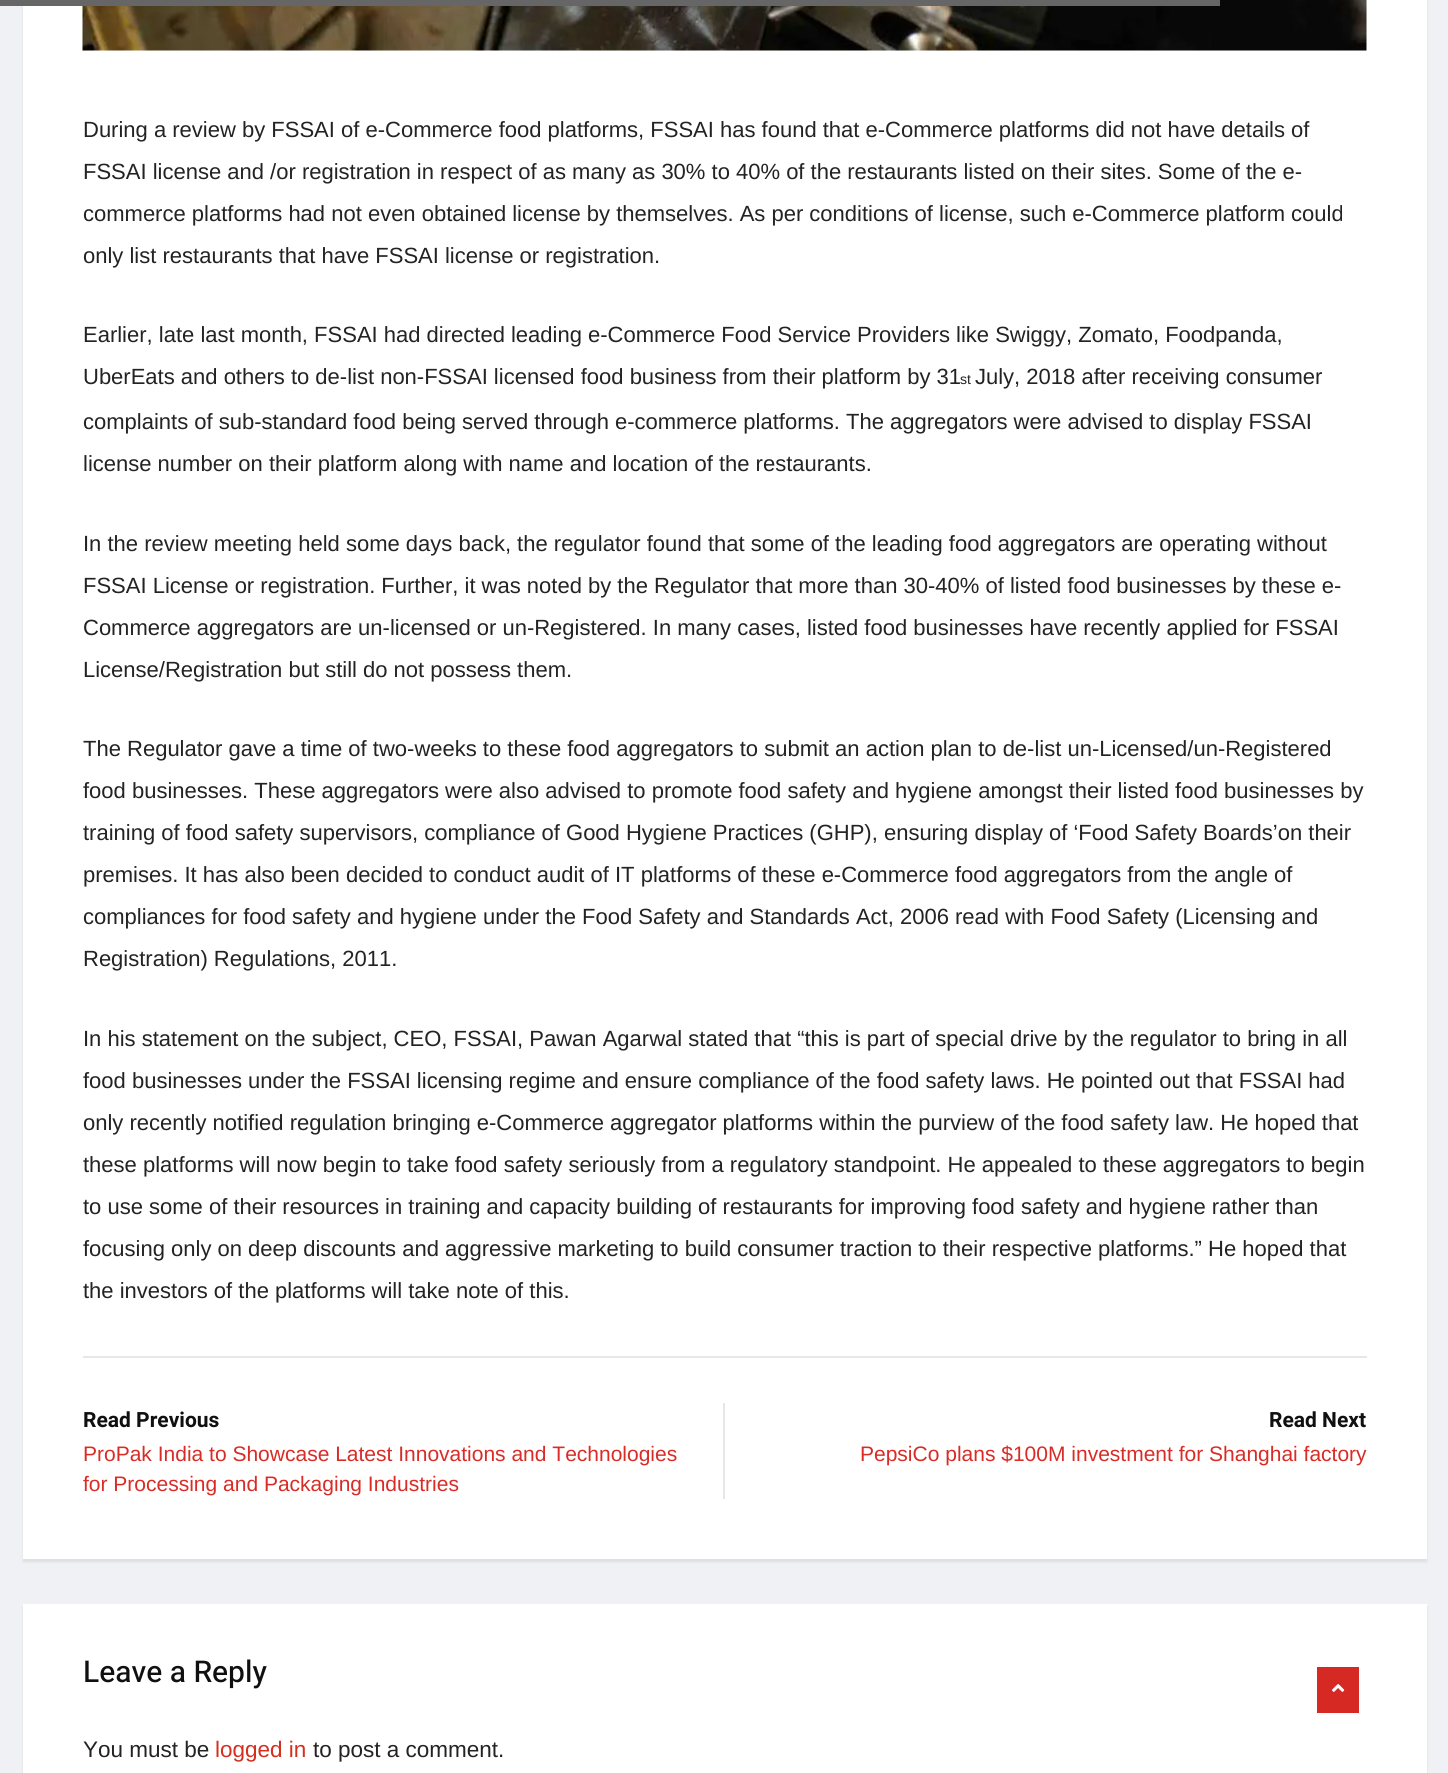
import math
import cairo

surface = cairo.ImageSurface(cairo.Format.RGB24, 1448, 1773)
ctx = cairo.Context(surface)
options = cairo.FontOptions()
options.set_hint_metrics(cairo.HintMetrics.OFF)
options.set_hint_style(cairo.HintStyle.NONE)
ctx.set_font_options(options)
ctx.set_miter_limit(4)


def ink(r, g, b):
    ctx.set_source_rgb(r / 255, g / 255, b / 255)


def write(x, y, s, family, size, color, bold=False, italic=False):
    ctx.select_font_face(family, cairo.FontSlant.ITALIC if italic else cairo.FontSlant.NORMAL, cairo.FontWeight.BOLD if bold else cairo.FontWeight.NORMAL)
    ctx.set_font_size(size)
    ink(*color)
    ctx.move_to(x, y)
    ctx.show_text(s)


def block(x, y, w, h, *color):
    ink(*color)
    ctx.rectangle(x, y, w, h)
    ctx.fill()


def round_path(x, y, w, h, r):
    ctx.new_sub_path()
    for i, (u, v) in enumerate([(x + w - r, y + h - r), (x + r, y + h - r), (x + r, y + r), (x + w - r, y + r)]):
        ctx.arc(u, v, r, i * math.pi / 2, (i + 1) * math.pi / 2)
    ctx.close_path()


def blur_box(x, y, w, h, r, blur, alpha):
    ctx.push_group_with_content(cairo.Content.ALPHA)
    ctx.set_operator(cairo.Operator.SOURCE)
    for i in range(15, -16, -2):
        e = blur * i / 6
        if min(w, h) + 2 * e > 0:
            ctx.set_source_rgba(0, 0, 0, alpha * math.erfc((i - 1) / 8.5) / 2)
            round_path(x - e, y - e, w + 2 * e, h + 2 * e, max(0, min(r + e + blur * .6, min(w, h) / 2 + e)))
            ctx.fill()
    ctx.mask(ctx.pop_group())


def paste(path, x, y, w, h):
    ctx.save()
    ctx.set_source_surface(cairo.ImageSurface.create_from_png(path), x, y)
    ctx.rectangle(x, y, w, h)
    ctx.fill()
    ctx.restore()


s1 = dict(family="Arimo", size=22, color=(35, 35, 35))
s2 = dict(family="Arimo", size=14, color=(35, 35, 35))
s3 = dict(family="Heebo", size=21, color=(16, 16, 16), bold=True)
s4 = dict(family="Arimo", size=21, color=(217, 44, 38))
s5 = dict(family="Heebo Medium", size=30, color=(16, 16, 16))
s6 = dict(family="Arimo", size=22.5, color=(35, 35, 35))
s7 = dict(family="Arimo", size=22.5, color=(212, 47, 31))

ink(240, 241, 244)
ctx.paint()
ink(0, 0, 0)
blur_box(23, -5, 1404, 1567, 0, 1.5, 0.08)
block(23, 0, 1404, 1559, 255, 255, 255)
paste("pic1.png", 82, 0, 1285, 51)
block(0, 0, 1220, 6, 103, 102, 102)
write(83, 137, "During a review by FSSAI of e-Commerce food platforms, FSSAI has found that e-Commerce platforms did not have details of", **s1)
write(83, 179, "FSSAI license and /or registration in respect of as many as 30% to 40% of the restaurants listed on their sites. Some of the e-", **s1)
write(83, 221, "commerce platforms had not even obtained license by themselves. As per conditions of license, such e-Commerce platform could", **s1)
write(83, 263, "only list restaurants that have FSSAI license or registration.", **s1)
write(83, 342, "Earlier, late last month, FSSAI had directed leading e-Commerce Food Service Providers like Swiggy, Zomato, Foodpanda,", **s1)
write(83, 384, "UberEats and others to de-list non-FSSAI licensed food business from their platform by 31", **s1)
write(960, 384, "st", **s2)
write(975, 384, "July, 2018 after receiving consumer", **s1)
write(83, 429, "complaints of sub-standard food being served through e-commerce platforms. The aggregators were advised to display FSSAI", **s1)
write(83, 471, "license number on their platform along with name and location of the restaurants.", **s1)
write(83, 551, "In the review meeting held some days back, the regulator found that some of the leading food aggregators are operating without", **s1)
write(83, 593, "FSSAI License or registration. Further, it was noted by the Regulator that more than 30-40% of listed food businesses by these e-", **s1)
write(83, 635, "Commerce aggregators are un-licensed or un-Registered. In many cases, listed food businesses have recently applied for FSSAI", **s1)
write(83, 677, "License/Registration but still do not possess them.", **s1)
write(83, 756, "The Regulator gave a time of two-weeks to these food aggregators to submit an action plan to de-list un-Licensed/un-Registered", **s1)
write(83, 798, "food businesses. These aggregators were also advised to promote food safety and hygiene amongst their listed food businesses by", **s1)
write(83, 840, "training of food safety supervisors, compliance of Good Hygiene Practices (GHP), ensuring display of ‘Food Safety Boards’on their", **s1)
write(83, 882, "premises. It has also been decided to conduct audit of IT platforms of these e-Commerce food aggregators from the angle of", **s1)
write(83, 924, "compliances for food safety and hygiene under the Food Safety and Standards Act, 2006 read with Food Safety (Licensing and", **s1)
write(83, 966, "Registration) Regulations, 2011.", **s1)
write(83, 1046, "In his statement on the subject, CEO, FSSAI, Pawan Agarwal stated that “this is part of special drive by the regulator to bring in all", **s1)
write(83, 1088, "food businesses under the FSSAI licensing regime and ensure compliance of the food safety laws. He pointed out that FSSAI had", **s1)
write(83, 1130, "only recently notified regulation bringing e-Commerce aggregator platforms within the purview of the food safety law. He hoped that", **s1)
write(83, 1172, "these platforms will now begin to take food safety seriously from a regulatory standpoint. He appealed to these aggregators to begin", **s1)
write(83, 1214, "to use some of their resources in training and capacity building of restaurants for improving food safety and hygiene rather than", **s1)
write(83, 1256, "focusing only on deep discounts and aggressive marketing to build consumer traction to their respective platforms.” He hoped that", **s1)
write(83, 1298, "the investors of the platforms will take note of this.", **s1)
block(83, 1356, 1284, 2, 231, 231, 231)
block(723, 1403, 2, 96, 231, 231, 231)
write(83, 1427, "Read Previous", **s3)
write(83, 1461, "ProPak India to Showcase Latest Innovations and Technologies", **s4)
write(83, 1491, "for Processing and Packaging Industries", **s4)
write(1269, 1427, "Read Next", **s3)
write(860, 1461, "PepsiCo plans $100M investment for Shanghai factory", **s4)
ink(0, 0, 0)
blur_box(23, 1607, 1404, 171, 0, 1.5, 0.08)
block(23, 1604, 1404, 169, 255, 255, 255)
write(83, 1682, "Leave a Reply", **s5)
write(83, 1757, "You must be", **s6)
write(215, 1757, "logged in", **s7)
write(313, 1757, "to post a comment.", **s6)
block(1317, 1667, 42, 46, 215, 41, 36)
paste("pic2.png", 1332, 1684, 13, 8)
surface.write_to_png("screenshot.png")
